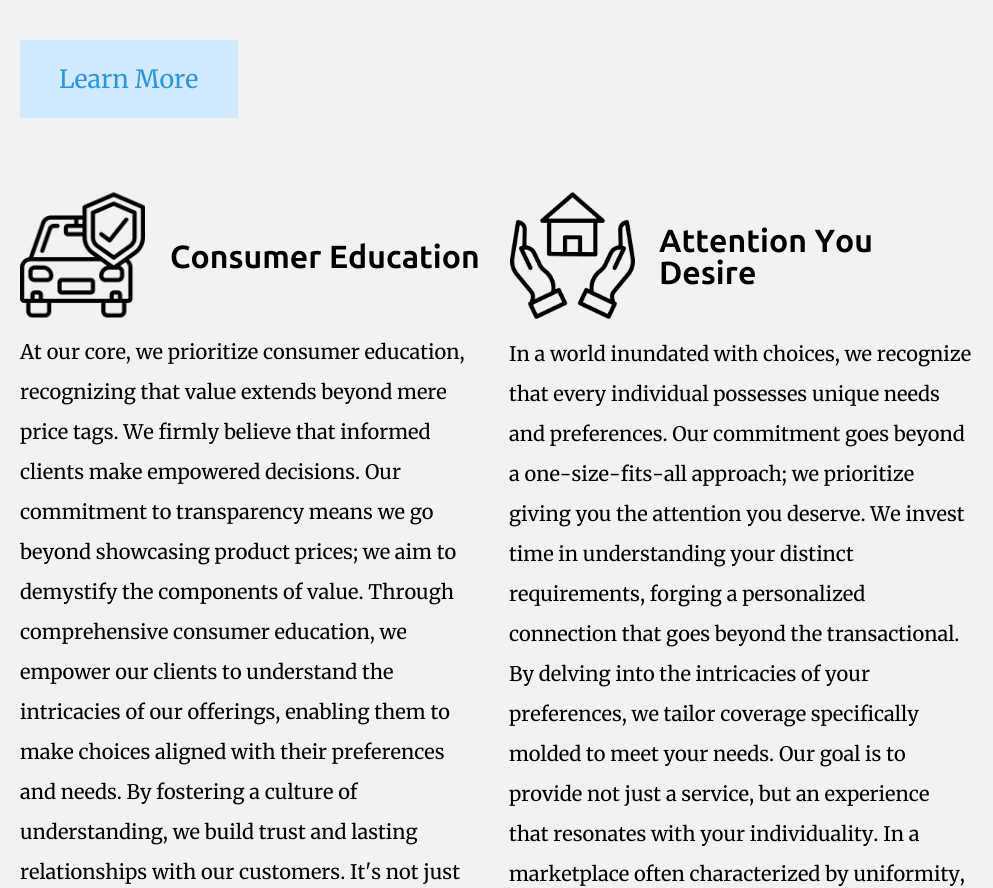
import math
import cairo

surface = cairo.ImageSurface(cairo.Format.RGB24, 993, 888)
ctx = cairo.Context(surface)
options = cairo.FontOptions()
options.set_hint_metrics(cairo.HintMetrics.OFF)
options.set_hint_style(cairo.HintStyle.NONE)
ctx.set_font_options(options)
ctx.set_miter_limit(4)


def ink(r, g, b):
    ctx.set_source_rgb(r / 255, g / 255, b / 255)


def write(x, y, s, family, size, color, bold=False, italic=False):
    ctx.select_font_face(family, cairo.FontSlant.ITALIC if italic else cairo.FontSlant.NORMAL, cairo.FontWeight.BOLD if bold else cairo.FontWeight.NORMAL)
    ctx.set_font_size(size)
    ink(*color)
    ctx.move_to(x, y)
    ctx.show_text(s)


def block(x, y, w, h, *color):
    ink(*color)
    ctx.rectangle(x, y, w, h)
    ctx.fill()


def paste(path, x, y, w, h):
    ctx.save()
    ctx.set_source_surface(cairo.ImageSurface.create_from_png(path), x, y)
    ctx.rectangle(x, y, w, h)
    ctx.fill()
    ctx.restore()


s1 = dict(family="Merriweather", size=25, color=(44, 150, 221))
s2 = dict(family="Ubuntu", size=32, color=(0, 0, 0), bold=True)
s3 = dict(family="Merriweather", size=20, color=(0, 0, 0))

ink(242, 242, 242)
ctx.paint()
block(20, 40, 218, 78, 209, 233, 254)
write(59, 88, "Learn More", **s1)
paste("pic1.png", 20, 192, 125, 126)
write(170, 268, "Consumer Education", **s2)
write(20, 359, "At our core, we prioritize consumer education,", **s3)
write(20, 399, "recognizing that value extends beyond mere", **s3)
write(20, 439, "price tags. We firmly believe that informed", **s3)
write(20, 479, "clients make empowered decisions. Our", **s3)
write(20, 519, "commitment to transparency means we go", **s3)
write(20, 559, "beyond showcasing product prices; we aim to", **s3)
write(20, 599, "demystify the components of value. Through", **s3)
write(20, 639, "comprehensive consumer education, we", **s3)
write(20, 679, "empower our clients to understand the", **s3)
write(20, 719, "intricacies of our offerings, enabling them to", **s3)
write(20, 759, "make choices aligned with their preferences", **s3)
write(20, 799, "and needs. By fostering a culture of", **s3)
write(20, 839, "understanding, we build trust and lasting", **s3)
write(20, 879, "relationships with our customers. It's not just", **s3)
paste("pic2.png", 510, 192, 125, 127)
write(659, 252, "Attention You", **s2)
write(659, 284, "Desire", **s2)
write(509, 361, "In a world inundated with choices, we recognize", **s3)
write(509, 401, "that every individual possesses unique needs", **s3)
write(509, 441, "and preferences. Our commitment goes beyond", **s3)
write(509, 481, "a one-size-fits-all approach; we prioritize", **s3)
write(509, 521, "giving you the attention you deserve. We invest", **s3)
write(509, 561, "time in understanding your distinct", **s3)
write(509, 601, "requirements, forging a personalized", **s3)
write(509, 641, "connection that goes beyond the transactional.", **s3)
write(509, 681, "By delving into the intricacies of your", **s3)
write(509, 721, "preferences, we tailor coverage specifically", **s3)
write(509, 761, "molded to meet your needs. Our goal is to", **s3)
write(509, 801, "provide not just a service, but an experience", **s3)
write(509, 841, "that resonates with your individuality. In a", **s3)
write(509, 881, "marketplace often characterized by uniformity,", **s3)
surface.write_to_png("screenshot.png")
